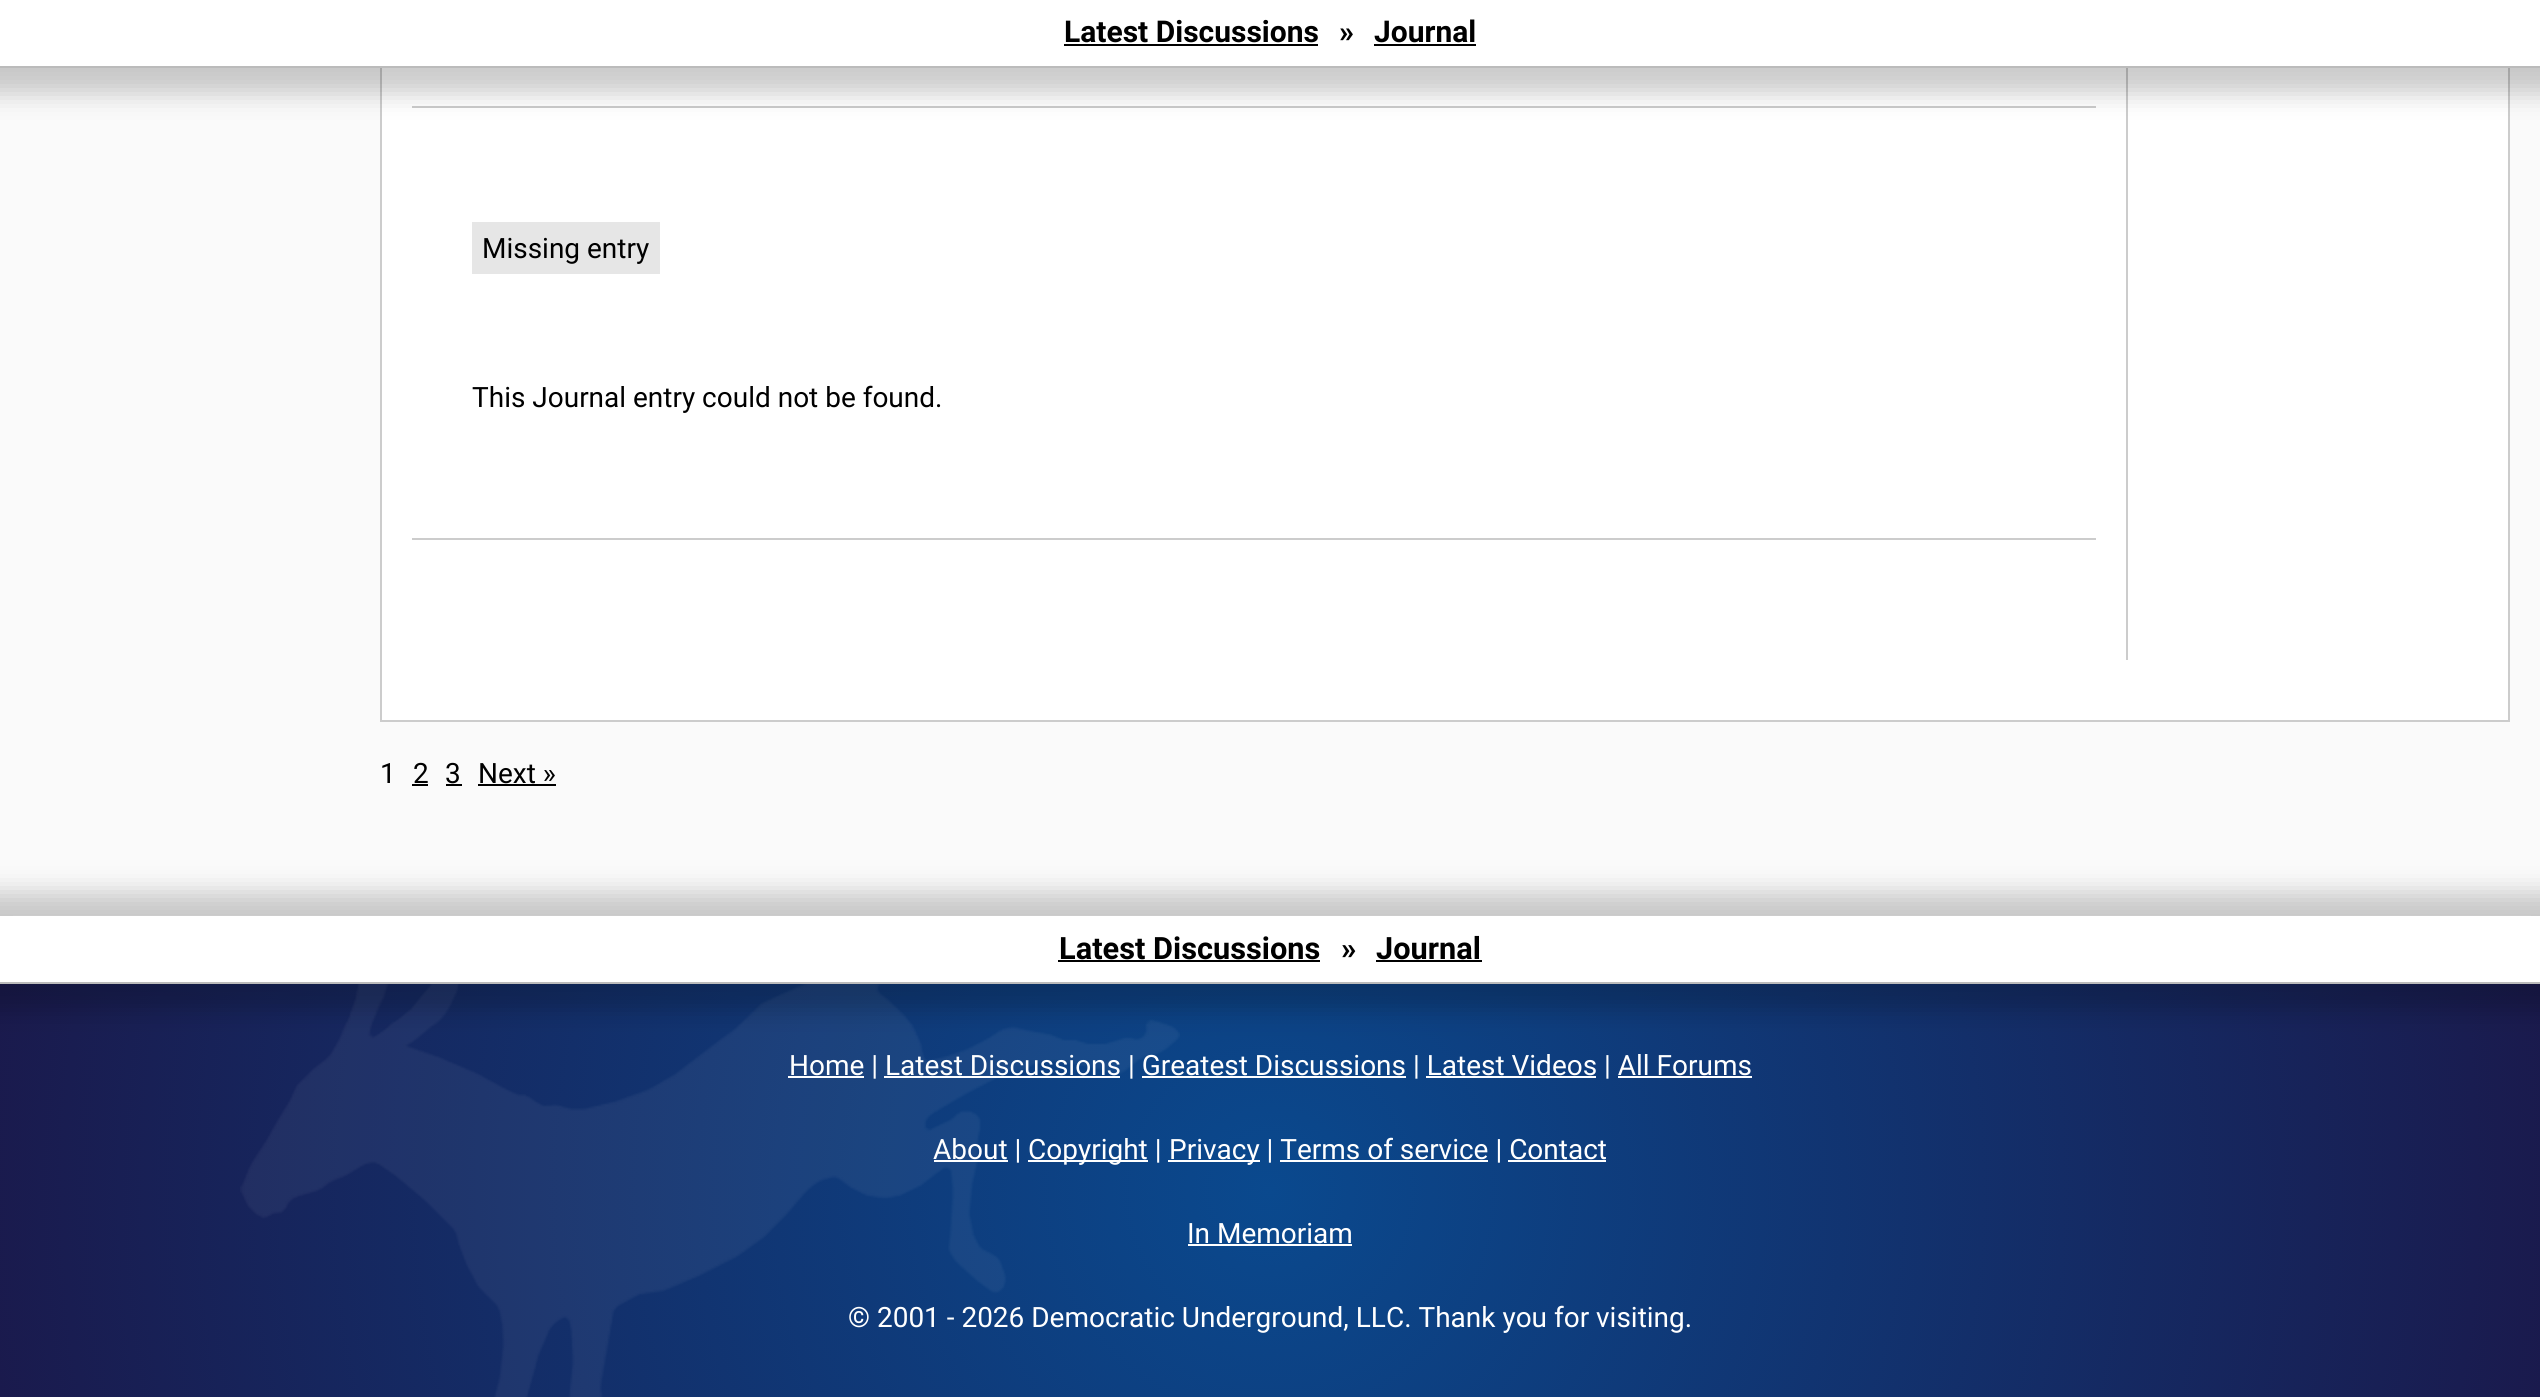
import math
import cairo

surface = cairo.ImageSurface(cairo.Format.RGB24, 2540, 1397)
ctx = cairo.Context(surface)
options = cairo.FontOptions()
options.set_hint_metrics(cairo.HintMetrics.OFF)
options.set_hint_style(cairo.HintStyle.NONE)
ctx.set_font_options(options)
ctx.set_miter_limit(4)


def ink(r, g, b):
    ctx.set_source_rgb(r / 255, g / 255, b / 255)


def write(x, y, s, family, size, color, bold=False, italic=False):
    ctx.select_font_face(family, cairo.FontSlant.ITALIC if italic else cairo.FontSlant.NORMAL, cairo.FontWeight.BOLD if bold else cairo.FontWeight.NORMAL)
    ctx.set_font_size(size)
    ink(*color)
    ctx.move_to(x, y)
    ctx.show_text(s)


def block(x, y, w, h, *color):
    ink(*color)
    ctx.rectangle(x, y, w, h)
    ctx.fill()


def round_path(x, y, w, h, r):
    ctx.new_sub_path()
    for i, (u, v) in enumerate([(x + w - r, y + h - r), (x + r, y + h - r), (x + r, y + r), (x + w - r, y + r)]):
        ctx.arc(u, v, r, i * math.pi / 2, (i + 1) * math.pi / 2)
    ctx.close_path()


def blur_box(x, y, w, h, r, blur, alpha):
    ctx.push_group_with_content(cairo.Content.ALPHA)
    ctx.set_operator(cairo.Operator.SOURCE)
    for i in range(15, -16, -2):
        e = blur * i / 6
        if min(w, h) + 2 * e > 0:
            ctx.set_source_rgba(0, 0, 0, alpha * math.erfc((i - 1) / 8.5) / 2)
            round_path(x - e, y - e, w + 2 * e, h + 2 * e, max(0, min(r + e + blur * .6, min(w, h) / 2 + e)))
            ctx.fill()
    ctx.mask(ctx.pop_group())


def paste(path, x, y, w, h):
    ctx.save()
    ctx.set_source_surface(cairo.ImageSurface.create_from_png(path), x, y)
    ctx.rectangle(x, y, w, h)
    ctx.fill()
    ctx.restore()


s1 = dict(family="Roboto", size=30, color=(0, 0, 0), bold=True)
s2 = dict(family="Roboto", size=28, color=(0, 0, 0))
s3 = dict(family="Roboto", size=30.75, color=(0, 0, 0), bold=True)
s4 = dict(family="Roboto", size=28, color=(255, 255, 255))

ink(250, 250, 250)
ctx.paint()
block(382, 68, 2126, 652, 255, 255, 255)
block(2508, 68, 2, 654, 204, 204, 204)
block(380, 720, 2130, 2, 204, 204, 204)
block(380, 68, 2, 654, 204, 204, 204)
block(412, 106, 1684, 2, 204, 204, 204)
block(2126, 68, 2, 592, 204, 204, 204)
ink(0, 0, 0)
blur_box(-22, -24, 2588, 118, 0, 12, 0.2)
block(0, 0, 2540, 66, 255, 255, 255)
block(0, 66, 2540, 2, 187, 187, 187)
write(1064, 42, "Latest Discussions", **s1)
block(1064, 44, 254, 2, 0, 0, 0)
write(1339, 42, "»", **s1)
write(1374, 42, "Journal", **s1)
block(1374, 44, 102, 2, 0, 0, 0)
block(472, 222, 188, 52, 230, 230, 230)
write(482, 258, "Missing entry", **s2)
write(472, 407, "This Journal entry could not be found.", **s2)
block(412, 538, 1684, 2, 204, 204, 204)
write(380, 783, "1", **s2)
write(413, 783, "2", **s2)
block(412, 784, 16, 2, 0, 0, 0)
write(445, 783, "3", **s2)
block(446, 784, 16, 2, 0, 0, 0)
write(478, 783, "Next »", **s2)
block(478, 784, 78, 2, 0, 0, 0)
paste("pic1.png", 0, 984, 2540, 413)
ink(0, 0, 0)
blur_box(-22, 892, 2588, 118, 0, 12, 0.2)
block(0, 916, 2540, 66, 255, 255, 255)
block(13, 915, 2518, 1, 204, 204, 204)
block(0, 982, 2540, 2, 187, 187, 187)
write(1059, 959, "Latest Discussions", **s3)
block(1058, 960, 262, 2, 0, 0, 0)
write(1341, 959, "»", **s3)
write(1376, 959, "Journal", **s3)
block(1376, 960, 106, 2, 0, 0, 0)
block(788, 1076, 76, 2, 255, 255, 255)
write(789, 1075, "Home | Latest Discussions | Greatest Discussions | Latest Videos | All Forums", **s4)
block(884, 1076, 236, 2, 255, 255, 255)
block(1142, 1076, 264, 2, 255, 255, 255)
block(1426, 1076, 170, 2, 255, 255, 255)
block(1618, 1076, 134, 2, 255, 255, 255)
block(934, 1160, 74, 2, 255, 255, 255)
write(933, 1159, "About |", **s4)
block(1028, 1160, 120, 2, 255, 255, 255)
write(1028, 1159, "Copyright |", **s4)
block(1168, 1160, 92, 2, 255, 255, 255)
write(1169, 1159, "Privacy | Terms of service | Contact", **s4)
block(1280, 1160, 208, 2, 255, 255, 255)
block(1508, 1160, 98, 2, 255, 255, 255)
write(1187, 1243, "In Memoriam", **s4)
block(1188, 1244, 164, 2, 255, 255, 255)
write(848, 1327, "© 2001 - 2026 Democratic Underground, LLC. Thank you for visiting.", **s4)
surface.write_to_png("screenshot.png")
